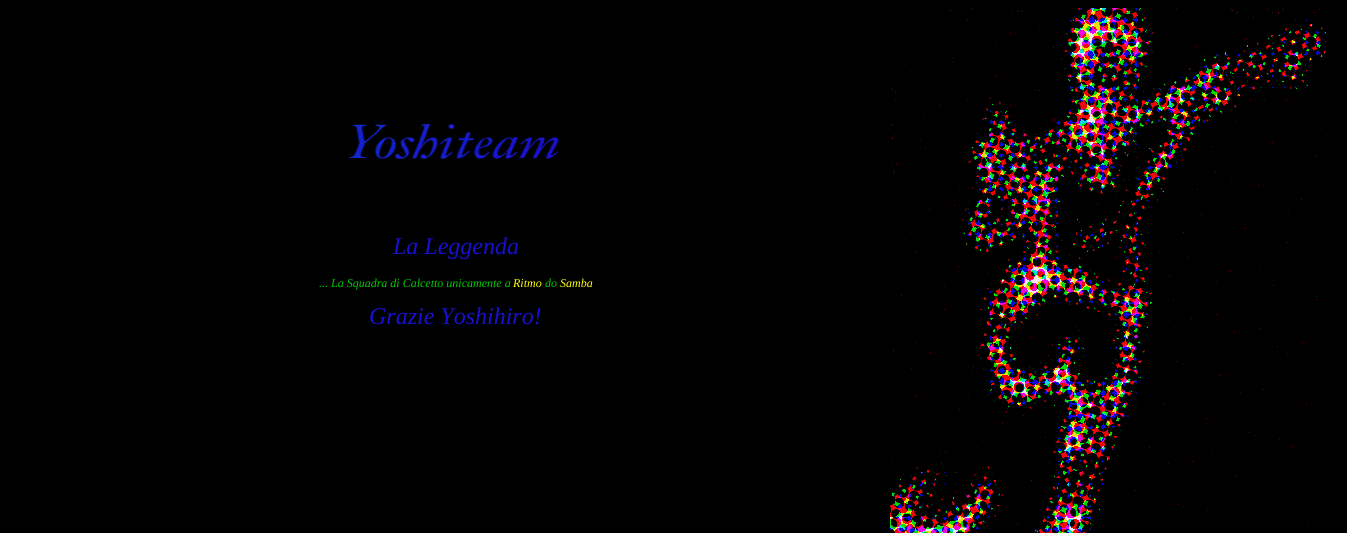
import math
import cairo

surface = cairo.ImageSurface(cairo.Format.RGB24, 1347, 533)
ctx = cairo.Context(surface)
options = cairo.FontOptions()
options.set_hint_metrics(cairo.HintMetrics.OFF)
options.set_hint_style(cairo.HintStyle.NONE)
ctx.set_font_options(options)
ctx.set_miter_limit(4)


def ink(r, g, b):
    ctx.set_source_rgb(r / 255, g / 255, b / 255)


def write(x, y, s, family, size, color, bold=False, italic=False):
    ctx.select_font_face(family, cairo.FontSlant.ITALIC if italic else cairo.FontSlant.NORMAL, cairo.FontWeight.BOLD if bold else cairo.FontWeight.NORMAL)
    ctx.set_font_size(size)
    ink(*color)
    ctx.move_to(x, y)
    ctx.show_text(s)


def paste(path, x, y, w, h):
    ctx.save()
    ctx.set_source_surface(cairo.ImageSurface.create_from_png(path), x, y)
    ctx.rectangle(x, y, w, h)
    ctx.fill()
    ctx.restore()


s1 = dict(family="Liberation Serif", size=24, color=(24, 16, 208), italic=True)
s2 = dict(family="Liberation Serif", size=12, color=(0, 204, 0), italic=True)
s3 = dict(family="Liberation Serif", size=12, color=(255, 255, 0), italic=True)

ink(0, 0, 0)
ctx.paint()
paste("pic1.png", 348, 124, 211, 35)
write(393, 254, "La Leggenda", **s1)
write(319, 287, "... La Squadra di Calcetto unicamente a", **s2)
write(513, 287, "Ritmo", **s3)
write(545, 287, "do", **s2)
write(560, 287, "Samba", **s3)
write(369, 324, "Grazie Yoshihiro!", **s1)
paste("pic2.png", 890, 8, 436, 525)
surface.write_to_png("screenshot.png")
